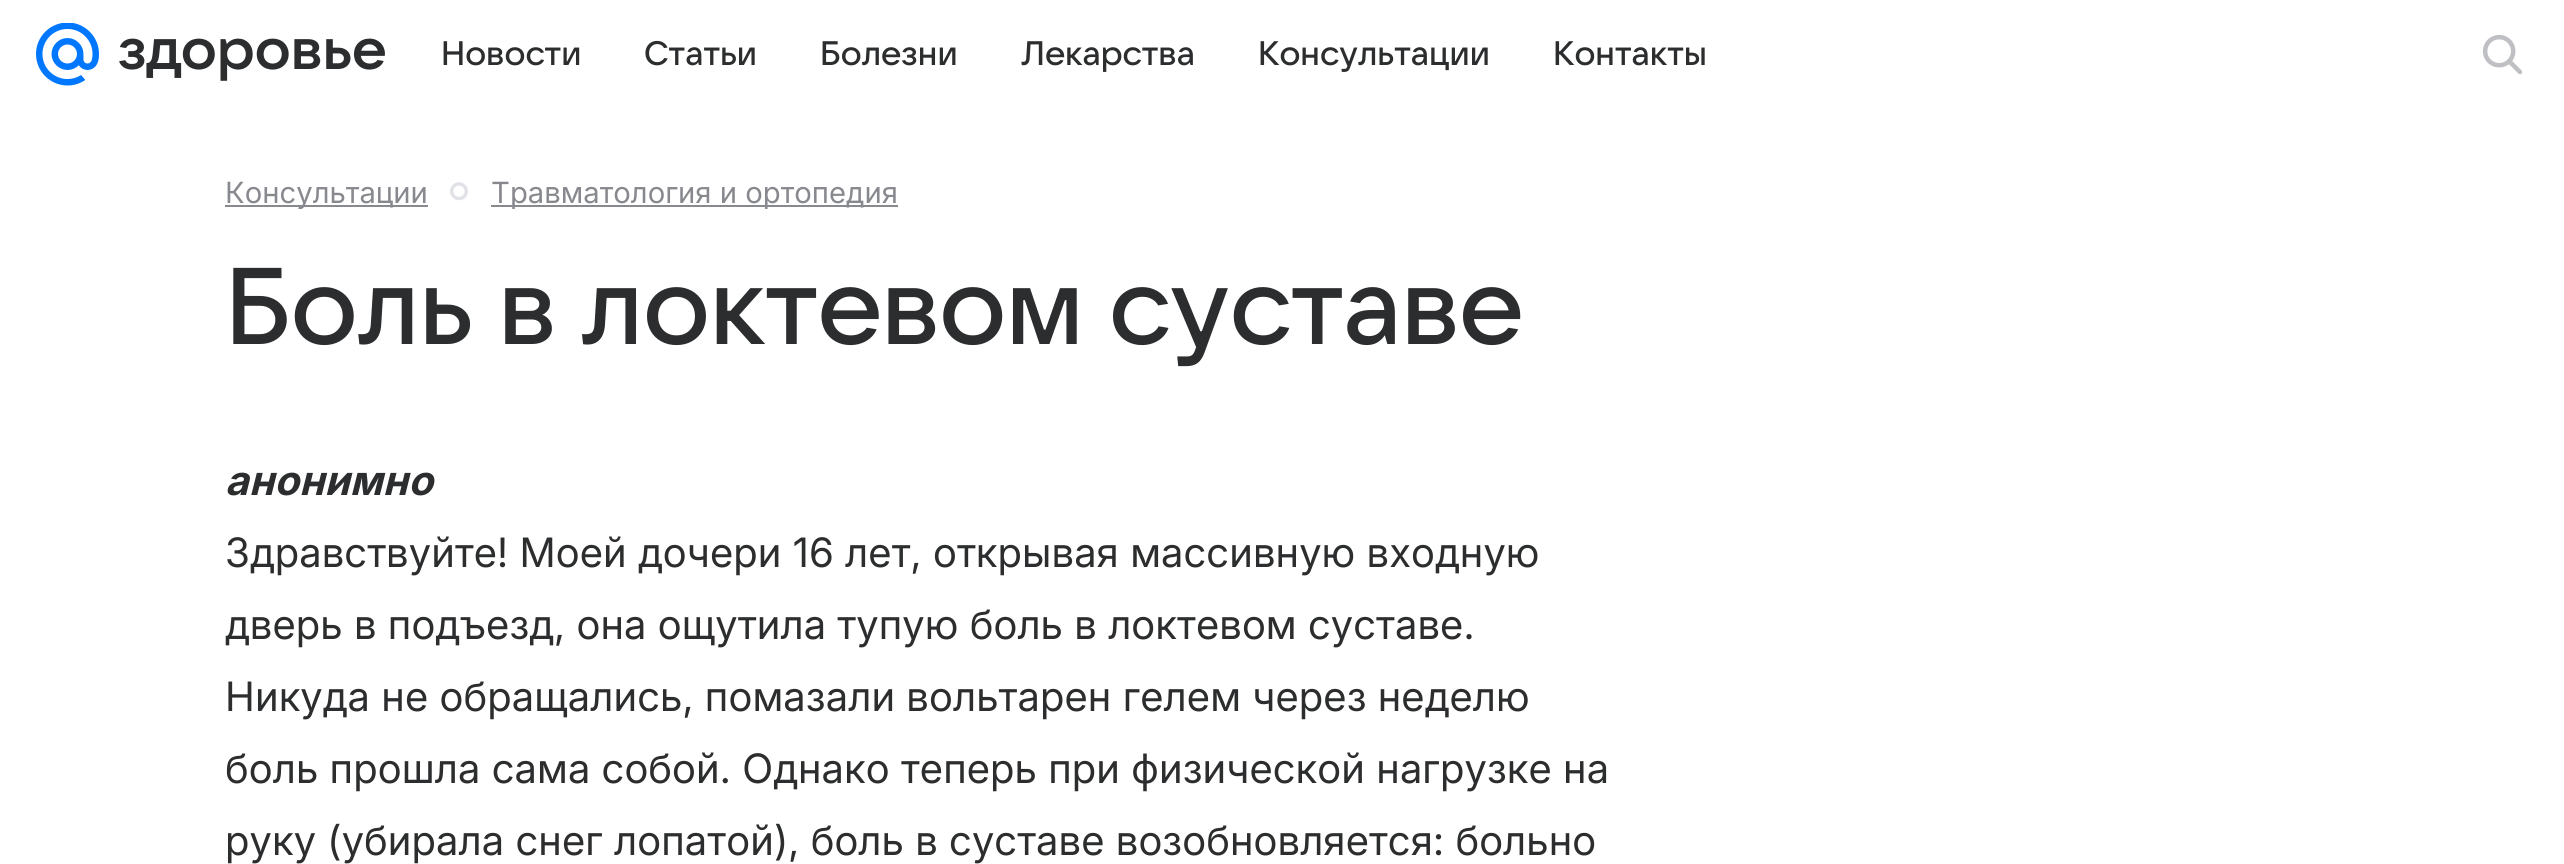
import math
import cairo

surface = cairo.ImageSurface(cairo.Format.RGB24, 2564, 864)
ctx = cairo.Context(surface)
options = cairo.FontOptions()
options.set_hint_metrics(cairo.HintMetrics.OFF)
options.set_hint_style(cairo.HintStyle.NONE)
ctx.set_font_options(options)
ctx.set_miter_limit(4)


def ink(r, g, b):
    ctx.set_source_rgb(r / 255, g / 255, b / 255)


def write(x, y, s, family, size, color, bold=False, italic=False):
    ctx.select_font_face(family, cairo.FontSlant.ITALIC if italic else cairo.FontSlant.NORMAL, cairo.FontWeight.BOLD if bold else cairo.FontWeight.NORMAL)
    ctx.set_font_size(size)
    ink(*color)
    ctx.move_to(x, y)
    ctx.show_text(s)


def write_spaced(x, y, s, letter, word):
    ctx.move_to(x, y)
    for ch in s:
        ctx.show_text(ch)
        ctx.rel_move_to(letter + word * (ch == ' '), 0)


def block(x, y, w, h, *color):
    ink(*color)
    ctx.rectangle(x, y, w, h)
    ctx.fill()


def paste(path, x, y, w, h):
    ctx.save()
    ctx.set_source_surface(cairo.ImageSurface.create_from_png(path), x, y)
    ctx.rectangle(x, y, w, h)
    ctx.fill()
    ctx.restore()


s1 = dict(family="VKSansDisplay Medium", size=33.75, color=(44, 45, 46))
s2 = dict(family="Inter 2", size=29.25, color=(135, 137, 143))

ink(255, 255, 255)
ctx.paint()
paste("pic1.png", 36, 23, 63, 63)
paste("pic2.png", 119, 38, 266, 43)
write(441, 65, "Новости", **s1)
write(644, 65, "Статьи", **s1)
write(820, 65, "Болезни", **s1)
write(1021, 65, "Лекарства", **s1)
write(1258, 65, "Консультации", **s1)
write(1553, 65, "Контакты", **s1)
paste("pic3.png", 2482, 34, 41, 41)
block(225, 205, 203, 2, 135, 137, 143)
write(225, 203, "Консультации", **s2)
paste("pic4.png", 450, 182, 18, 19)
block(491, 205, 407, 2, 135, 137, 143)
write(491, 203, "Травматология и ортопедия", **s2)
ctx.select_font_face("VKSansDisplay Medium")
ctx.set_font_size(108)
ink(44, 45, 46)
write_spaced(225, 344, "Боль в локтевом суставе", -0.5, 0)
ctx.select_font_face("Inter", cairo.FontSlant.ITALIC, cairo.FontWeight.BOLD)
ctx.set_font_size(40.5)
write_spaced(225, 495, "анонимно", 0.12, 0)
ctx.select_font_face("Inter")
write_spaced(225, 567, "Здравствуйте! Моей дочери 16 лет, открывая массивную входную", 0.12, 0)
write_spaced(225, 639, "дверь в подъезд, она ощутила тупую боль в локтевом суставе.", 0.12, 0)
write_spaced(225, 711, "Никуда не обращались, помазали вольтарен гелем через неделю", 0.12, 0)
write_spaced(225, 783, "боль прошла сама собой. Однако теперь при физической нагрузке на", 0.12, 0)
write_spaced(225, 855, "руку (убирала снег лопатой), боль в суставе возобновляется: больно", 0.12, 0)
surface.write_to_png("screenshot.png")
